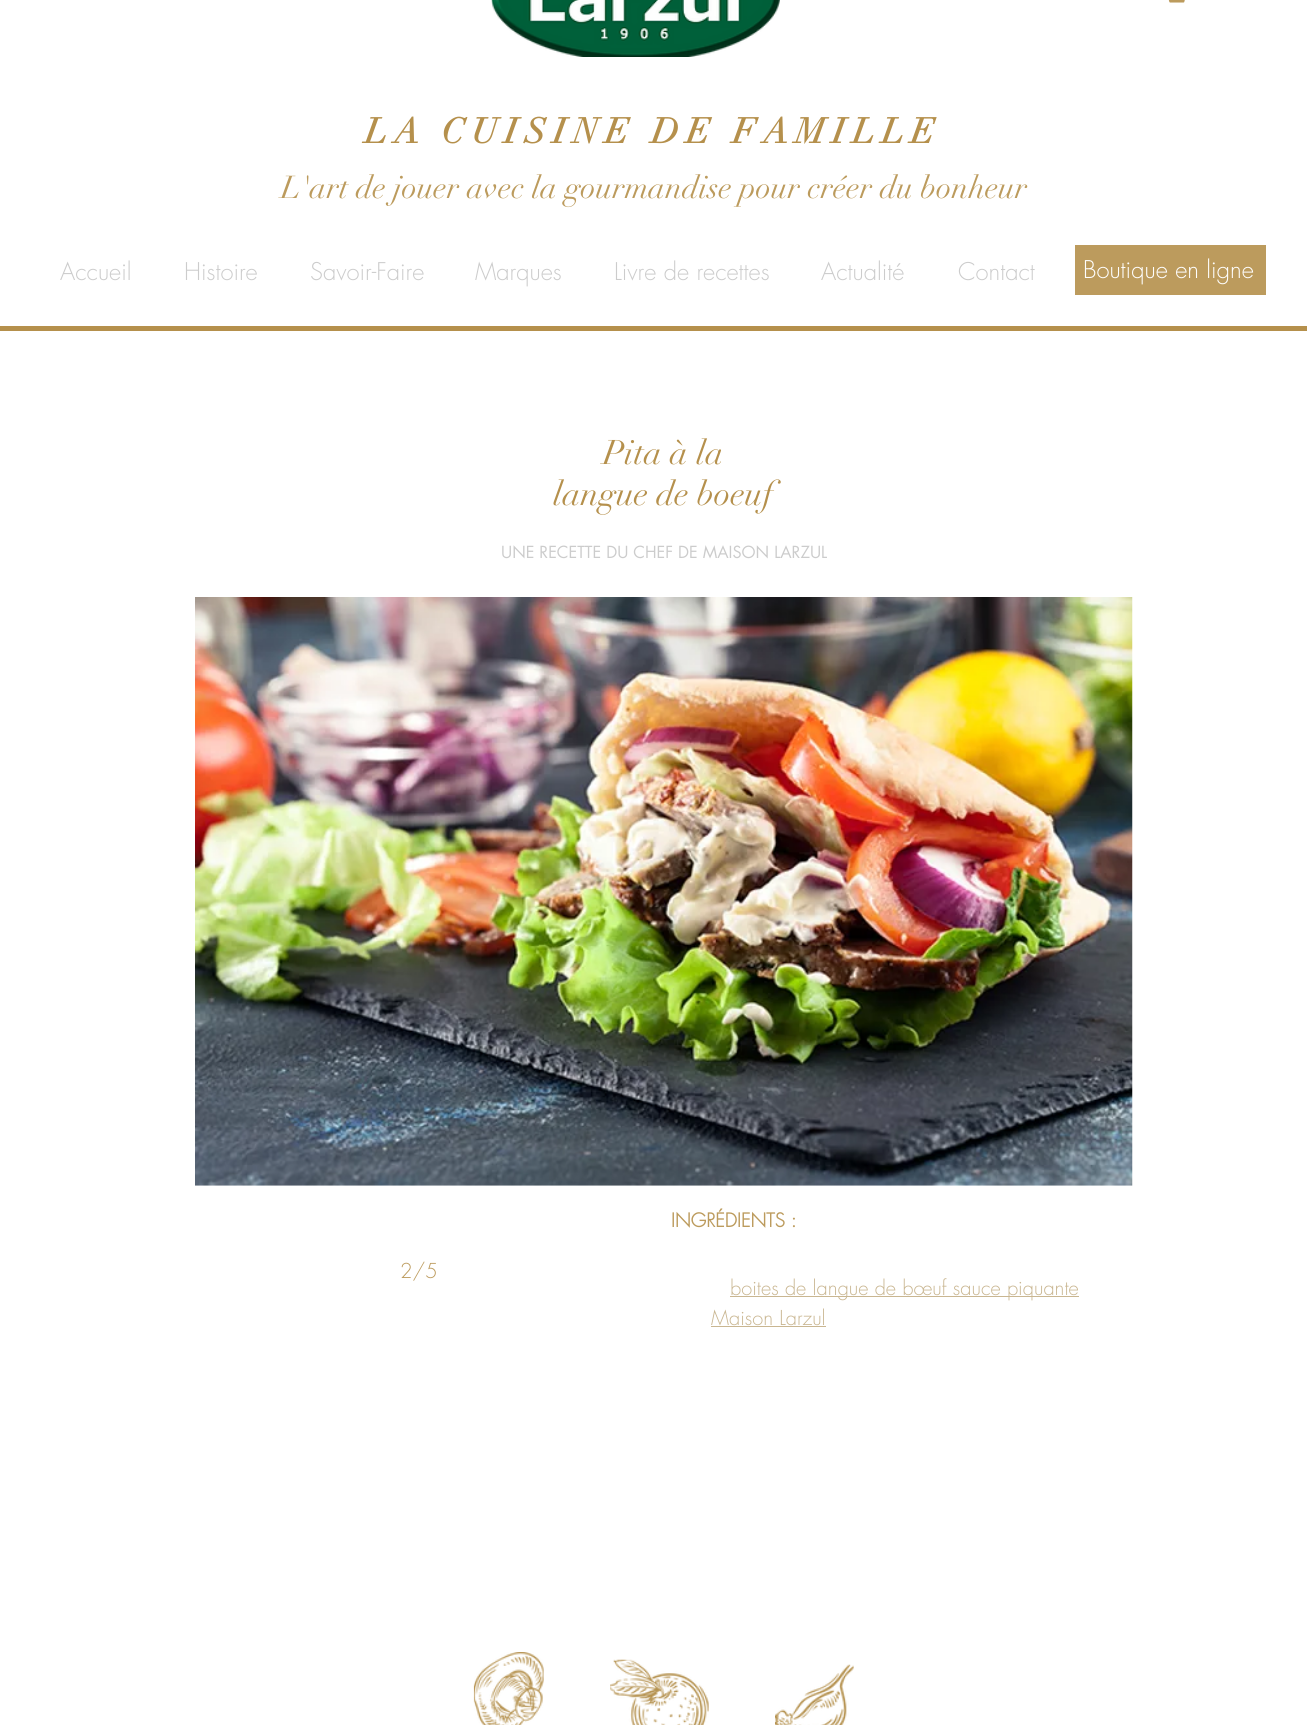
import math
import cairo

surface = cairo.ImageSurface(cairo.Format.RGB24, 1307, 1725)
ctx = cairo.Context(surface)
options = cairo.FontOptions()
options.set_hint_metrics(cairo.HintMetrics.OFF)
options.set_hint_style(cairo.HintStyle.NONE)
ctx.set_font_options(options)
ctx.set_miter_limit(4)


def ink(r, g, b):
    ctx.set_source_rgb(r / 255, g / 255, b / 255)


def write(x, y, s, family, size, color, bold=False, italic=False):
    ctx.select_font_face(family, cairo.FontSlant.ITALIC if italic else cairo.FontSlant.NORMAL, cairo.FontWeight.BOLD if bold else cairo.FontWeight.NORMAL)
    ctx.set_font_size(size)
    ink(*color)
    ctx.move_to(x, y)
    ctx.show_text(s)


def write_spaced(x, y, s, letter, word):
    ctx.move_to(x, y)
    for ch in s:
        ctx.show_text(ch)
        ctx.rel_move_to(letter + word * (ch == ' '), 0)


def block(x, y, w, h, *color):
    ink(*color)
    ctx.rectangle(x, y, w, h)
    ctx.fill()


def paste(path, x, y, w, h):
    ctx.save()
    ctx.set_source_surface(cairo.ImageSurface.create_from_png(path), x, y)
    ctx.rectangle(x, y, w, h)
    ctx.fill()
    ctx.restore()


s1 = dict(family="didot", size=31.25, color=(188, 155, 93))
s2 = dict(family="futura Light", size=23.75, color=(204, 204, 204))
s3 = dict(family="futura Light", size=23.75, color=(255, 255, 255))
s4 = dict(family="didot", size=33.75, color=(181, 144, 76))
s5 = dict(family="futura", size=16.25, color=(204, 204, 204))
s6 = dict(family="futura", size=18.75, color=(188, 155, 93), bold=True)
s7 = dict(family="futura Light", size=20, color=(188, 155, 93))
s8 = dict(family="futura Light", size=20, color=(201, 182, 145))

ink(255, 255, 255)
ctx.paint()
paste("pic1.png", 491, 0, 289, 57)
paste("pic2.png", 1168, 0, 17, 3)
ctx.select_font_face("didot", cairo.FontSlant.NORMAL, cairo.FontWeight.BOLD)
ctx.set_font_size(35)
ink(181, 144, 76)
write_spaced(365, 143, "LA CUISINE DE FAMILLE", 7, 0)
write(281, 198, "L'art de jouer avec la gourmandise pour créer du bonheur", **s1)
write(60, 280, "Accueil", **s2)
write(184, 280, "Histoire", **s2)
write(310, 280, "Savoir-Faire", **s2)
write(475, 280, "Marques", **s2)
write(614, 280, "Livre de recettes", **s2)
write(821, 280, "Actualité", **s2)
write(958, 280, "Contact", **s2)
block(1075, 245, 191, 50, 188, 155, 93)
write(1083, 278, "Boutique en ligne", **s3)
block(0, 326, 1307, 5, 181, 144, 76)
write(603, 464, "Pita à la", **s4)
write(553, 505, "langue de boeuf", **s4)
write(501, 558, "UNE RECETTE DU CHEF DE MAISON LARZUL", **s5)
paste("pic3.png", 195, 597, 938, 589)
write(671, 1227, "INGRÉDIENTS :", **s6)
write(400, 1278, "2/5", **s7)
block(730, 1296, 349, 1, 201, 182, 145)
write(730, 1295, "boites de langue de bœuf sauce piquante", **s8)
write(711, 1325, "Maison Larzul", **s8)
block(711, 1326, 115, 1, 201, 182, 145)
paste("pic4.png", 473, 1652, 71, 73)
paste("pic5.png", 610, 1659, 99, 66)
paste("pic6.png", 775, 1664, 79, 61)
surface.write_to_png("screenshot.png")
